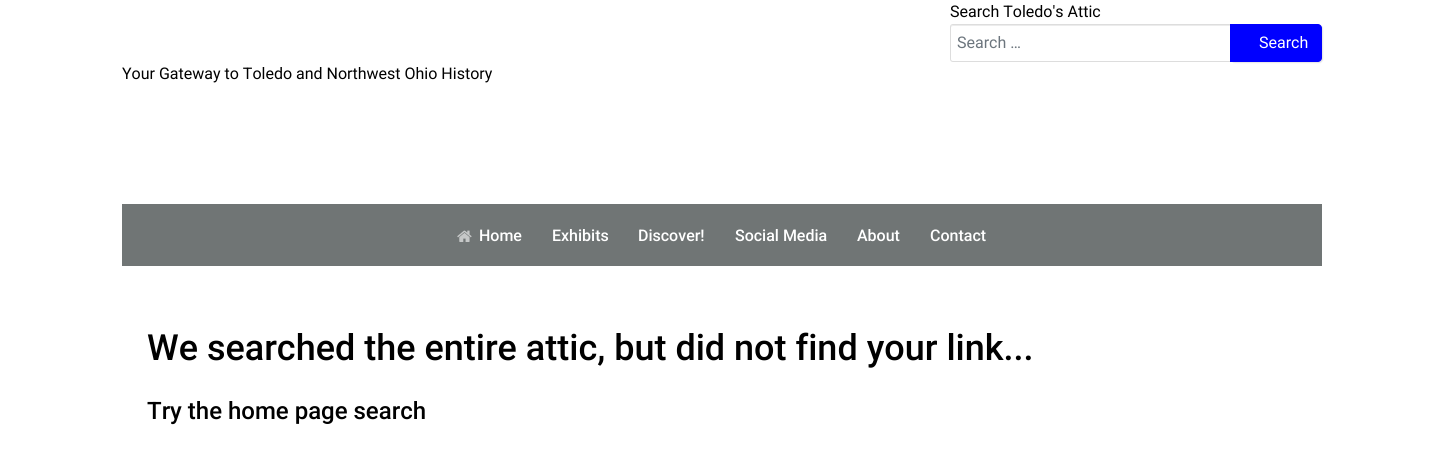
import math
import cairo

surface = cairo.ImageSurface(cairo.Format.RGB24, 1443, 457)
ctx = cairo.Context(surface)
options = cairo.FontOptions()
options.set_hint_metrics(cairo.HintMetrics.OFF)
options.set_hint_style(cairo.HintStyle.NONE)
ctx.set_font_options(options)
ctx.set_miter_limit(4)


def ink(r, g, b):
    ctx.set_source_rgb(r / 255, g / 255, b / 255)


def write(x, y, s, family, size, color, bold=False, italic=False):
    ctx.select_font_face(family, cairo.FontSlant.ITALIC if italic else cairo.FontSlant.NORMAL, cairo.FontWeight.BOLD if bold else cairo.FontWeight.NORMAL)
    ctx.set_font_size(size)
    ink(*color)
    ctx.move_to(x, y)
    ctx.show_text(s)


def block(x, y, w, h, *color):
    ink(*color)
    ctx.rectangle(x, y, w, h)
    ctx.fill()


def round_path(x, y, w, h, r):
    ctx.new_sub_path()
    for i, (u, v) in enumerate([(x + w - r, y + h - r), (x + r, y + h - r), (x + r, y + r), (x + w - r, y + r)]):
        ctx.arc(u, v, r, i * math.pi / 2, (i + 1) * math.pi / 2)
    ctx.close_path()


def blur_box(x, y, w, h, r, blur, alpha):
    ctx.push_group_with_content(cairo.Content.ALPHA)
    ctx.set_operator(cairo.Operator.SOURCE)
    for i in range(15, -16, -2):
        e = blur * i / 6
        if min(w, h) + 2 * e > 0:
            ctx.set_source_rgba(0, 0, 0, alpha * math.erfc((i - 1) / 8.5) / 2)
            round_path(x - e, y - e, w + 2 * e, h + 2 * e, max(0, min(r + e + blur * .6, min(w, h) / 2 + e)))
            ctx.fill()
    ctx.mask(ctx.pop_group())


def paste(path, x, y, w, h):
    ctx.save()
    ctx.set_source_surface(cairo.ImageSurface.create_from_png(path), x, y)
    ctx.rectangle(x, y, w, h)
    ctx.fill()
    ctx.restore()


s1 = dict(family="Roboto", size=16, color=(0, 0, 0))
s2 = dict(family="Roboto", size=16, color=(108, 117, 125))
s3 = dict(family="Roboto", size=16, color=(255, 255, 255))
s4 = dict(family="Roboto Medium", size=16, color=(255, 255, 255))
s5 = dict(family="Roboto Medium", size=36, color=(0, 0, 0))
s6 = dict(family="Roboto Medium", size=24, color=(0, 0, 0))

ink(255, 255, 255)
ctx.paint()
write(950, 17, "Search Toledo's Attic", **s1)
ink(236, 236, 236)
ctx.new_path()
ctx.move_to(953, 26)
ctx.line_to(1230, 26)
ctx.line_to(1230, 25)
ctx.line_to(953, 25)
ctx.curve_to(951, 25, 951, 27, 951, 28)
ctx.curve_to(951, 27, 952, 26, 953, 26)
ctx.close_path()
ctx.fill()
ctx.new_path()
ctx.move_to(953, 24.5)
ctx.line_to(1230.5, 24.5)
ctx.line_to(1230.5, 61.5)
ctx.line_to(953, 61.5)
ctx.curve_to(951.5, 61.5, 950.5, 60.5, 950.5, 59)
ctx.line_to(950.5, 27)
ctx.curve_to(950.5, 25.5, 951.5, 24.5, 953, 24.5)
ctx.close_path()
ink(221, 221, 221)
ctx.set_line_width(1)
ctx.stroke()
write(957, 48, "Search …", **s2)
ink(0, 0, 0)
blur_box(1231, 25, 92, 38, 4, 0.5, 0.1)
ink(0, 0, 255)
ctx.new_path()
ctx.move_to(1230, 24)
ctx.line_to(1318, 24)
ctx.curve_to(1320, 24, 1322, 26, 1322, 28)
ctx.line_to(1322, 58)
ctx.curve_to(1322, 60, 1320, 62, 1318, 62)
ctx.line_to(1230, 62)
ctx.close_path()
ctx.fill()
write(1259, 48, "Search", **s3)
write(122, 79, "Your Gateway to Toledo and Northwest Ohio History", **s1)
block(122, 204, 1200, 62, 112, 117, 117)
paste("pic1.png", 457, 230, 15, 12)
write(479, 241, "Home", **s4)
write(552, 241, "Exhibits", **s4)
write(638, 241, "Discover!", **s4)
write(735, 241, "Social Media", **s4)
write(857, 241, "About", **s4)
write(930, 241, "Contact", **s4)
write(147, 360, "We searched the entire attic, but did not find your link...", **s5)
write(147, 419, "Try the home page search", **s6)
surface.write_to_png("screenshot.png")
